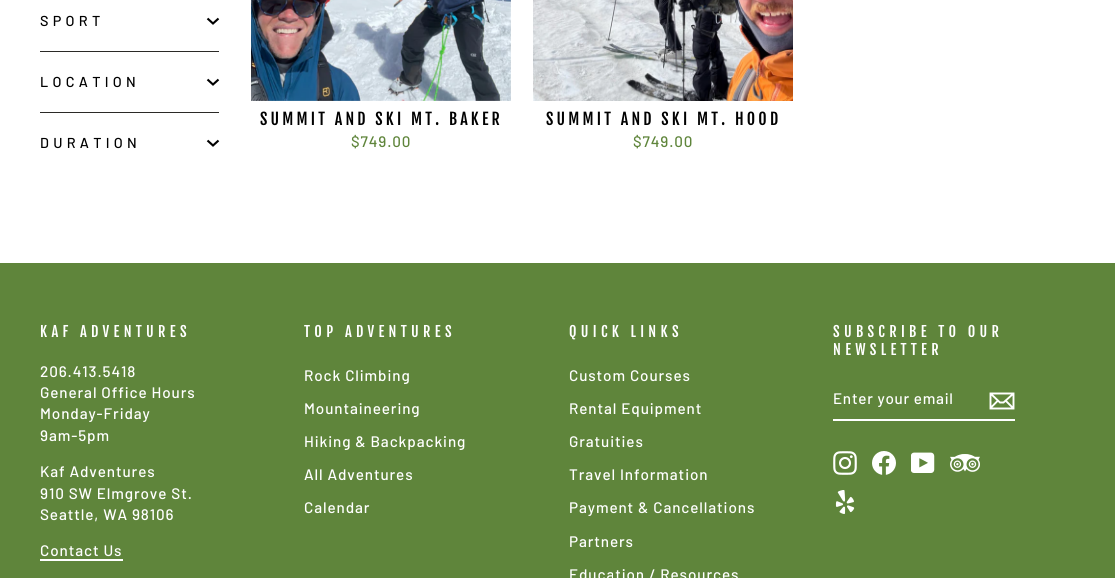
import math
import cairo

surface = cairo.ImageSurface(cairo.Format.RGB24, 1115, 578)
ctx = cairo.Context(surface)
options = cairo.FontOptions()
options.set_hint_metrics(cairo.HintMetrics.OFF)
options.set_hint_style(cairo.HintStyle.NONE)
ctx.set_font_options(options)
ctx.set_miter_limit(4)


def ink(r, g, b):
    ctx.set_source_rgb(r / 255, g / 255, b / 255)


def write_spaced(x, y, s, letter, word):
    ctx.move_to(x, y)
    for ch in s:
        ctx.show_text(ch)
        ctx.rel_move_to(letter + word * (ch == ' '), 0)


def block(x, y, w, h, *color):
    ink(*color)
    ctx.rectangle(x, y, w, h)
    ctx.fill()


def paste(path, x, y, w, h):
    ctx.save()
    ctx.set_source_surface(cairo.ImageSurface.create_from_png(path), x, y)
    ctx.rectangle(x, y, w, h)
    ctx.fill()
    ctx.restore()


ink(255, 255, 255)
ctx.paint()
ctx.select_font_face("Barlow Medium")
ctx.set_font_size(14.4)
ink(0, 0, 0)
write_spaced(40, 26, "SPORT", 4.3, 0)
ctx.new_path()
ctx.move_to(207.5, 18.5)
ctx.line_to(213, 23.5)
ctx.line_to(218.5, 18.5)
ctx.set_line_width(2.1)
ctx.stroke()
block(40, 51, 179, 1, 43, 42, 39)
ink(0, 0, 0)
write_spaced(40, 87, "LOCATION", 4.3, 0)
ctx.new_path()
ctx.move_to(207.5, 79.5)
ctx.line_to(213, 84.5)
ctx.line_to(218.5, 79.5)
ctx.stroke()
block(40, 112, 179, 1, 43, 42, 39)
ink(0, 0, 0)
write_spaced(40, 148, "DURATION", 4.3, 0)
ctx.new_path()
ctx.move_to(207.5, 140.5)
ctx.line_to(213, 145.5)
ctx.line_to(218.5, 140.5)
ctx.stroke()
paste("pic1.png", 251, 0, 260, 101)
ctx.select_font_face("Fjalla One")
ctx.set_font_size(16)
write_spaced(260, 125, "SUMMIT AND SKI MT. BAKER", 3.2, 0)
ctx.select_font_face("Barlow Medium")
ctx.set_font_size(15.25)
ink(95, 133, 59)
write_spaced(351, 147, "$749.00", 0.9, 0)
paste("pic2.png", 533, 0, 260, 101)
ctx.select_font_face("Fjalla One")
ctx.set_font_size(16)
ink(0, 0, 0)
write_spaced(546, 125, "SUMMIT AND SKI MT. HOOD", 3.2, 0)
ctx.select_font_face("Barlow Medium")
ctx.set_font_size(15.25)
ink(95, 133, 59)
write_spaced(633, 147, "$749.00", 0.9, 0)
block(0, 263, 1115, 315, 95, 133, 59)
ctx.select_font_face("Fjalla One")
ctx.set_font_size(14.4)
ink(255, 255, 255)
write_spaced(40, 337, "KAF ADVENTURES", 4.3, 0)
ctx.select_font_face("Barlow Medium")
ctx.set_font_size(15.25)
write_spaced(40, 377, "206.413.5418", 0.9, 0)
write_spaced(40, 398, "General Office Hours", 0.9, 0)
write_spaced(40, 419, "Monday-Friday", 0.9, 0)
write_spaced(40, 441, "9am-5pm", 0.9, 0)
write_spaced(40, 477, "Kaf Adventures", 0.9, 0)
write_spaced(40, 499, "910 SW Elmgrove St.", 0.9, 0)
write_spaced(40, 520, "Seattle, WA 98106", 0.9, 0)
write_spaced(40, 556, "Contact Us", 0.9, 0)
block(40, 559, 83, 2, 255, 255, 255)
ctx.select_font_face("Fjalla One")
ctx.set_font_size(14.4)
write_spaced(304, 337, "TOP ADVENTURES", 4.3, 0)
ctx.select_font_face("Barlow Medium")
ctx.set_font_size(15.25)
write_spaced(304, 381, "Rock Climbing", 0.9, 0)
write_spaced(304, 414, "Mountaineering", 0.9, 0)
write_spaced(304, 447, "Hiking & Backpacking", 0.9, 0)
write_spaced(304, 480, "All Adventures", 0.9, 0)
write_spaced(304, 513, "Calendar", 0.9, 0)
ctx.select_font_face("Fjalla One")
ctx.set_font_size(14.4)
write_spaced(569, 337, "QUICK LINKS", 4.3, 0)
ctx.select_font_face("Barlow Medium")
ctx.set_font_size(15.25)
write_spaced(569, 381, "Custom Courses", 0.9, 0)
write_spaced(569, 414, "Rental Equipment", 0.9, 0)
write_spaced(569, 447, "Gratuities", 0.9, 0)
write_spaced(569, 480, "Travel Information", 0.9, 0)
write_spaced(569, 513, "Payment & Cancellations", 0.9, 0)
write_spaced(569, 547, "Partners", 0.9, 0)
write_spaced(569, 580, "Education / Resources", 0.9, 0)
ctx.select_font_face("Fjalla One")
ctx.set_font_size(14.4)
write_spaced(833, 337, "SUBSCRIBE TO OUR", 4.3, 0)
write_spaced(833, 355, "NEWSLETTER", 4.3, 0)
block(833, 419, 182, 2, 255, 255, 255)
ctx.select_font_face("Barlow Medium")
ctx.set_font_size(15.25)
write_spaced(833, 404, "Enter your email", 0.75, 0)
ctx.new_path()
ctx.move_to(1013.5, 408.5)
ctx.line_to(990.5, 408.5)
ctx.line_to(990.5, 393.5)
ctx.line_to(1013.5, 393.5)
ctx.close_path()
ctx.move_to(990.5, 393.5)
ctx.line_to(1000, 402.5)
ctx.line_to(1003.5, 402.5)
ctx.line_to(1013.5, 393.5)
ctx.move_to(998, 400.5)
ctx.line_to(990.5, 408)
ctx.move_to(1013.5, 408.5)
ctx.line_to(1005.5, 400.5)
ctx.set_line_width(1.9)
ctx.stroke()
paste("pic3.png", 833, 451, 24, 24)
paste("pic4.png", 872, 451, 24, 24)
paste("pic5.png", 911, 452, 24, 21)
paste("pic6.png", 950, 454, 30, 18)
paste("pic7.png", 835, 490, 20, 24)
surface.write_to_png("screenshot.png")
